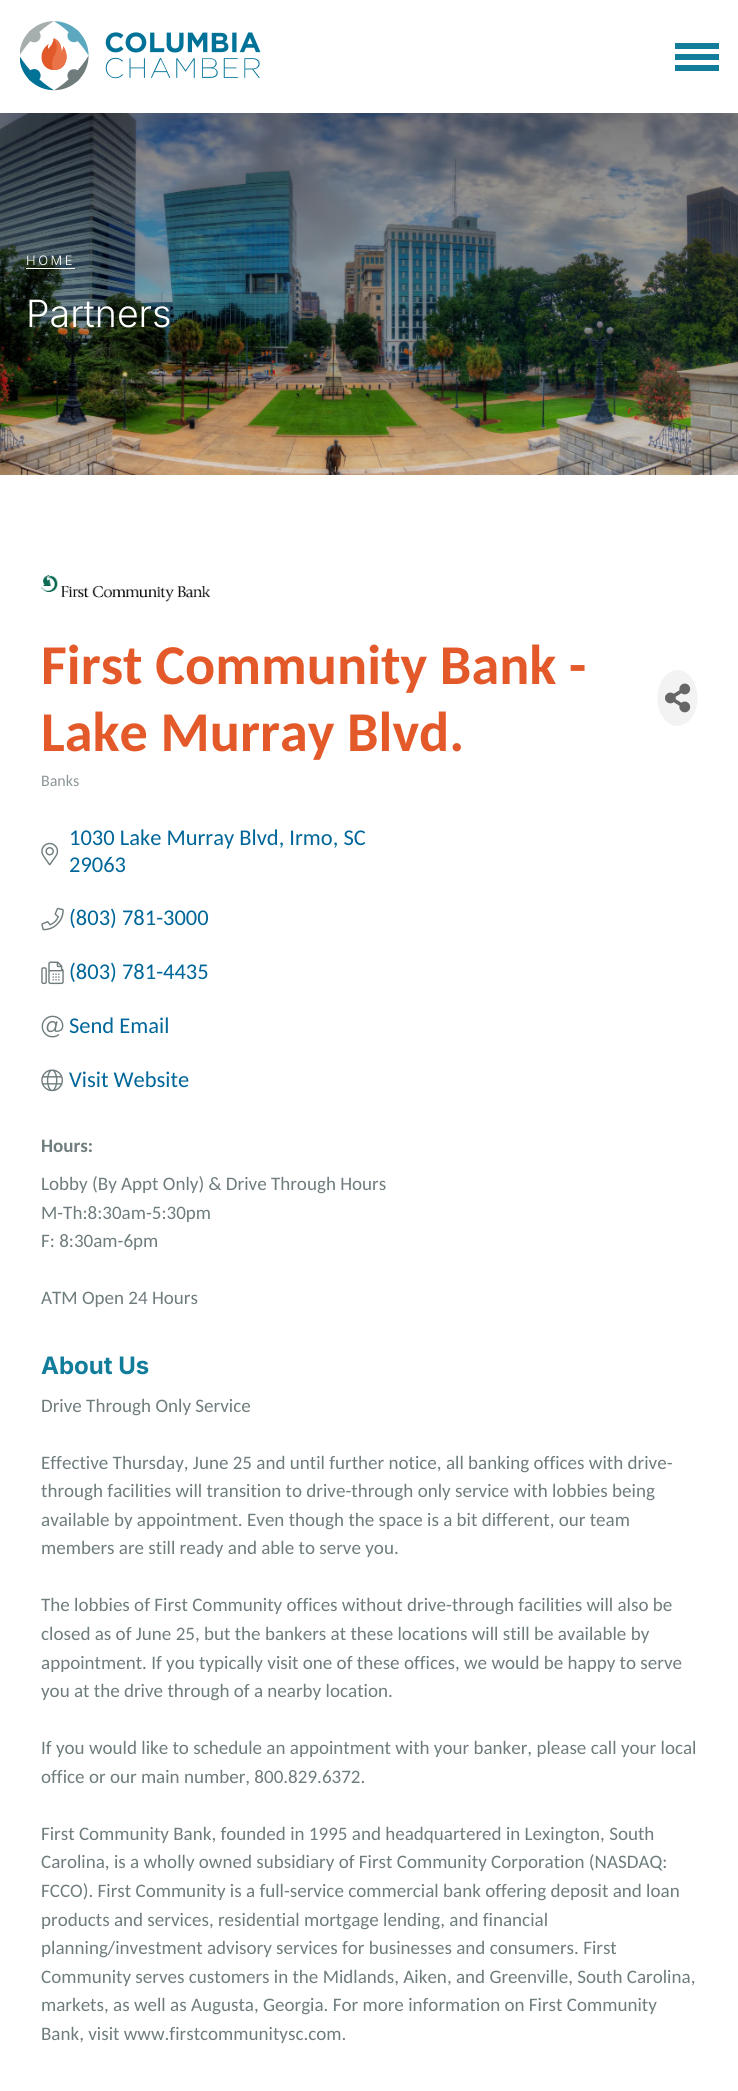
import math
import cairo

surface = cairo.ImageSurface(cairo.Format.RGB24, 738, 2091)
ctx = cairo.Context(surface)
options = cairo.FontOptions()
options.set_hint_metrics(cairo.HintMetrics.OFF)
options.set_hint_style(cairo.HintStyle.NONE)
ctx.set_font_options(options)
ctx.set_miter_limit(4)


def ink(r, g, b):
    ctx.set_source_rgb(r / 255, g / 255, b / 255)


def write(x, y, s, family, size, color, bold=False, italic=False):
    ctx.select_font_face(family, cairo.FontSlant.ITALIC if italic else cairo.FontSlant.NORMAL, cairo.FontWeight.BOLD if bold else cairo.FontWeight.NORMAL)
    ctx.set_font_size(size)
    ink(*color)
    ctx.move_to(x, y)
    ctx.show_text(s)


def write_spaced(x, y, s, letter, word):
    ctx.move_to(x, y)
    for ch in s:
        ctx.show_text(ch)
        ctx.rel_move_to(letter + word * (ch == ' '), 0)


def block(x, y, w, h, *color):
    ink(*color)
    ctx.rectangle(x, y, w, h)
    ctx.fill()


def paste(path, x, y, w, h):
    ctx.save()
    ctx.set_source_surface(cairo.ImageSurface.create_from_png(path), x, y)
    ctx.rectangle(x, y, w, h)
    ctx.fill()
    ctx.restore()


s1 = dict(family="Inter Light", size=37.5, color=(255, 255, 255))
s2 = dict(family="Carlito", size=56.25, color=(227, 89, 41), bold=True)
s3 = dict(family="Carlito", size=16, color=(140, 150, 151))
s4 = dict(family="Carlito", size=22.5, color=(0, 102, 153))
s5 = dict(family="Carlito", size=19.05, color=(111, 124, 125), bold=True)
s6 = dict(family="Carlito", size=19.05, color=(111, 124, 125))
s7 = dict(family="Inter", size=24, color=(18, 124, 155), bold=True)

ink(255, 255, 255)
ctx.paint()
paste("pic1.png", 20, 21, 241, 70)
block(675, 43, 44, 6, 18, 124, 155)
block(675, 54, 44, 6, 18, 124, 155)
block(675, 65, 44, 6, 18, 124, 155)
paste("pic2.png", 0, 113, 738, 362)
ctx.select_font_face("Inter Light")
ctx.set_font_size(13)
ink(255, 255, 255)
write_spaced(26, 265, "HOME", 2.5, 0)
block(26, 268, 49, 1, 255, 255, 255)
write(26, 327, "Partners", **s1)
paste("pic3.png", 41, 575, 169, 27)
write(41, 684, "First Community Bank -", **s2)
write(41, 751, "Lake Murray Blvd.", **s2)
ink(243, 243, 243)
ctx.new_path()
ctx.move_to(677.5, 670)
ctx.curve_to(688.5, 670, 697.5, 682.5, 697.5, 698)
ctx.curve_to(697.5, 713.5, 688.5, 726, 677.5, 726)
ctx.curve_to(666.5, 726, 657.5, 713.5, 657.5, 698)
ctx.curve_to(657.5, 682.5, 666.5, 670, 677.5, 670)
ctx.close_path()
ctx.fill()
paste("pic4.png", 665, 683, 26, 30)
write(41, 786, "Banks", **s3)
write(69, 845, "1030 Lake Murray Blvd, Irmo, SC", **s4)
paste("pic5.png", 41, 842, 18, 24)
write(69, 872, "29063", **s4)
paste("pic6.png", 41, 907, 23, 24)
write(69, 925, "(803) 781-3000", **s4)
paste("pic7.png", 41, 961, 23, 24)
write(69, 979, "(803) 781-4435", **s4)
paste("pic8.png", 41, 1015, 23, 23)
write(69, 1033, "Send Email", **s4)
paste("pic9.png", 41, 1069, 22, 23)
write(69, 1087, "Visit Website", **s4)
write(41, 1152, "Hours:", **s5)
write(41, 1190, "Lobby (By Appt Only) & Drive Through Hours", **s6)
write(41, 1219, "M-Th:8:30am-5:30pm", **s6)
write(41, 1247, "F: 8:30am-6pm", **s6)
write(41, 1304, "ATM Open 24 Hours", **s6)
write(41, 1374, "About Us", **s7)
write(41, 1412, "Drive Through Only Service", **s6)
write(41, 1469, "Effective Thursday, June 25 and until further notice, all banking offices with drive-", **s6)
write(41, 1497, "through facilities will transition to drive-through only service with lobbies being", **s6)
write(41, 1526, "available by appointment. Even though the space is a bit different, our team", **s6)
write(41, 1554, "members are still ready and able to serve you.", **s6)
write(41, 1611, "The lobbies of First Community offices without drive-through facilities will also be", **s6)
write(41, 1640, "closed as of June 25, but the bankers at these locations will still be available by", **s6)
write(41, 1669, "appointment. If you typically visit one of these offices, we would be happy to serve", **s6)
write(41, 1697, "you at the drive through of a nearby location.", **s6)
write(41, 1754, "If you would like to schedule an appointment with your banker, please call your local", **s6)
write(41, 1783, "office or our main number, 800.829.6372.", **s6)
write(41, 1840, "First Community Bank, founded in 1995 and headquartered in Lexington, South", **s6)
write(41, 1868, "Carolina, is a wholly owned subsidiary of First Community Corporation (NASDAQ:", **s6)
write(41, 1897, "FCCO). First Community is a full-service commercial bank offering deposit and loan", **s6)
write(41, 1926, "products and services, residential mortgage lending, and financial", **s6)
write(41, 1954, "planning/investment advisory services for businesses and consumers. First", **s6)
write(41, 1983, "Community serves customers in the Midlands, Aiken, and Greenville, South Carolina,", **s6)
write(41, 2011, "markets, as well as Augusta, Georgia. For more information on First Community", **s6)
write(41, 2040, "Bank, visit www.firstcommunitysc.com.", **s6)
surface.write_to_png("screenshot.png")
